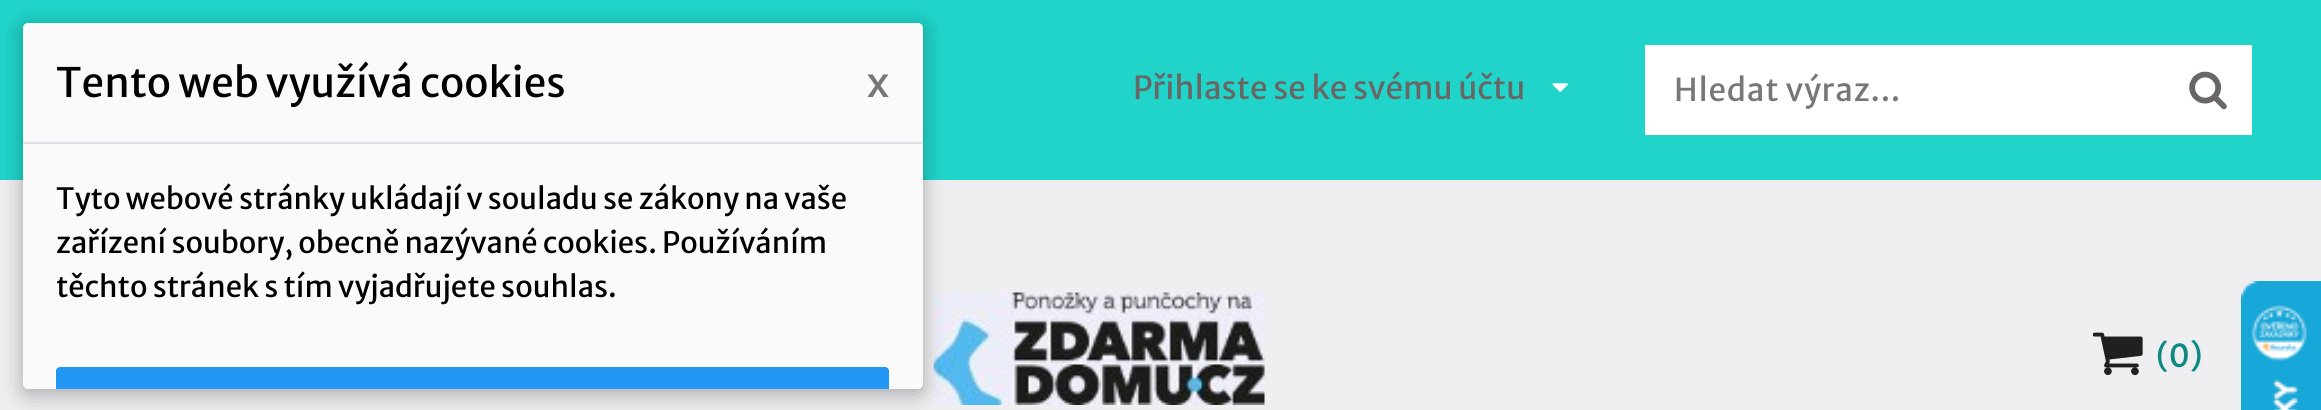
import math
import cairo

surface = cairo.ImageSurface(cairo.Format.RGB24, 2321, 410)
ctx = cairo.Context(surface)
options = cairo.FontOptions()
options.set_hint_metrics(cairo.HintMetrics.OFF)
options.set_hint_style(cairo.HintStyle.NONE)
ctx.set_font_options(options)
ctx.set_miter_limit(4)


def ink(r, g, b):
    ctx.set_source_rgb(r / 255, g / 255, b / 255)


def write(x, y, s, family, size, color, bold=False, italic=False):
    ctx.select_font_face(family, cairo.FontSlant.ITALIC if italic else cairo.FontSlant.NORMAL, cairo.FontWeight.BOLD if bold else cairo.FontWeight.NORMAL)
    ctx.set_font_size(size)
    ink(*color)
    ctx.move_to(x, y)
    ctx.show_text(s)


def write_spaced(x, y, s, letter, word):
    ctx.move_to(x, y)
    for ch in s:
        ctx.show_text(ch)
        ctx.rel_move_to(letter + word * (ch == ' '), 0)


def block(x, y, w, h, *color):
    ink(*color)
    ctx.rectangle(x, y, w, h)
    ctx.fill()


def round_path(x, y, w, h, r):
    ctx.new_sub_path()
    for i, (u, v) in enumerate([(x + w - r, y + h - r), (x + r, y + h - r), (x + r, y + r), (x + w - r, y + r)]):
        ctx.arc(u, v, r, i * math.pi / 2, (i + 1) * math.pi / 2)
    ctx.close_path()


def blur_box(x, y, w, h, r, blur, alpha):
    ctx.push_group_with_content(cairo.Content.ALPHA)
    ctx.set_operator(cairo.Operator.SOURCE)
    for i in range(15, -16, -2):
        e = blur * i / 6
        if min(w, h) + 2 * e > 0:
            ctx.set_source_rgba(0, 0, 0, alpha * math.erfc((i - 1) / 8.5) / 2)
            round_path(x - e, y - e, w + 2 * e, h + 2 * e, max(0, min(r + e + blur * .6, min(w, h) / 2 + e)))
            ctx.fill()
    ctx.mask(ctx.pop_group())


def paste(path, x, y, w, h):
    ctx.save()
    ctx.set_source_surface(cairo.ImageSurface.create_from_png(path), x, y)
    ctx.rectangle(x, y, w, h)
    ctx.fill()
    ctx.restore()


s1 = dict(family="Merriweather Sans", size=40.5, color=(0, 0, 0))
s2 = dict(family="Merriweather Sans", size=40.5, color=(119, 119, 119))
s3 = dict(family="Merriweather Sans", size=29.25, color=(0, 0, 0))
s4 = dict(family="Merriweather Sans", size=31.5, color=(105, 102, 102))
s5 = dict(family="Merriweather Sans", size=31.5, color=(12, 138, 131))

ink(239, 239, 242)
ctx.paint()
block(0, 0, 2321, 180, 32, 212, 201)
paste("pic3.png", 933, 292, 332, 113)
ink(0, 0, 0)
blur_box(23, 27, 900, 367, 5, 11, 0.3)
ink(250, 250, 250)
round_path(23, 23, 900, 366, 5)
ctx.fill()
block(23, 142, 900, 2, 222, 226, 230)
write(56, 97, "Tento web využívá cookies", **s1)
write(867, 97, "x", **s2)
write(56, 209, "Tyto webové stránky ukládají v souladu se zákony na vaše", **s3)
write(56, 253, "zařízení soubory, obecně nazývané cookies. Používáním", **s3)
write(56, 297, "těchto stránek s tím vyjadřujete souhlas.", **s3)
ink(33, 150, 243)
ctx.new_path()
ctx.move_to(61, 367)
ctx.line_to(884, 367)
ctx.curve_to(887, 367, 889, 369, 889, 372)
ctx.line_to(889, 389)
ctx.line_to(56, 389)
ctx.line_to(56, 372)
ctx.curve_to(56, 369, 58, 367, 61, 367)
ctx.close_path()
ctx.fill()
ctx.new_path()
ctx.move_to(61, 367)
ctx.curve_to(58, 367, 56, 369, 56, 372)
ctx.line_to(56, 389)
ctx.line_to(58, 389)
ctx.line_to(58, 372)
ctx.curve_to(58, 370, 59, 369, 61, 369)
ctx.line_to(884, 369)
ctx.curve_to(886, 369, 887, 370, 887, 372)
ctx.line_to(887, 389)
ctx.line_to(889, 389)
ctx.line_to(889, 372)
ctx.curve_to(889, 369, 887, 367, 884, 367)
ctx.close_path()
ctx.fill()
write(1133, 99, "Přihlaste se ke svému účtu", **s4)
paste("pic1.png", 1552, 83, 16, 9)
block(1645, 45, 607, 90, 255, 255, 255)
ink(119, 119, 119)
write_spaced(1674, 101, "Hledat výraz...", 0.75, 0)
paste("pic2.png", 2189, 71, 38, 39)
paste("pic4.png", 2093, 332, 50, 44)
write(2156, 367, "(0)", **s5)
paste("pic5.png", 2241, 281, 80, 129)
surface.write_to_png("screenshot.png")
